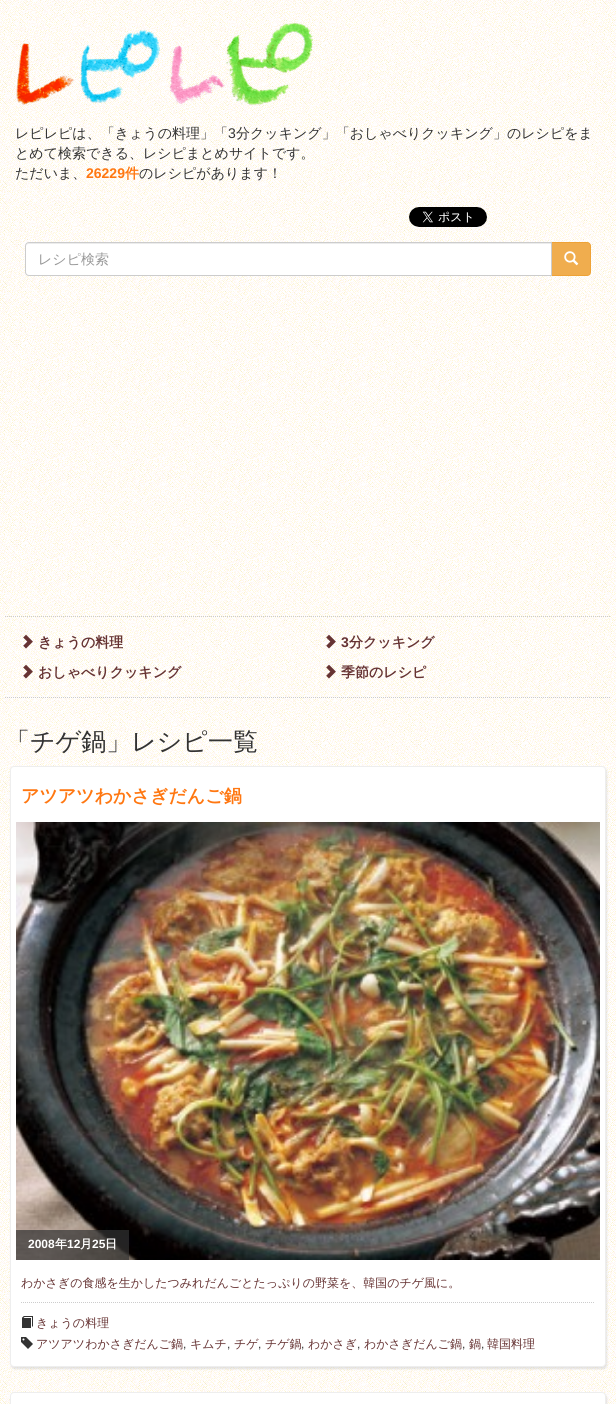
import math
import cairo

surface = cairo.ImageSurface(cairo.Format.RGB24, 616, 1404)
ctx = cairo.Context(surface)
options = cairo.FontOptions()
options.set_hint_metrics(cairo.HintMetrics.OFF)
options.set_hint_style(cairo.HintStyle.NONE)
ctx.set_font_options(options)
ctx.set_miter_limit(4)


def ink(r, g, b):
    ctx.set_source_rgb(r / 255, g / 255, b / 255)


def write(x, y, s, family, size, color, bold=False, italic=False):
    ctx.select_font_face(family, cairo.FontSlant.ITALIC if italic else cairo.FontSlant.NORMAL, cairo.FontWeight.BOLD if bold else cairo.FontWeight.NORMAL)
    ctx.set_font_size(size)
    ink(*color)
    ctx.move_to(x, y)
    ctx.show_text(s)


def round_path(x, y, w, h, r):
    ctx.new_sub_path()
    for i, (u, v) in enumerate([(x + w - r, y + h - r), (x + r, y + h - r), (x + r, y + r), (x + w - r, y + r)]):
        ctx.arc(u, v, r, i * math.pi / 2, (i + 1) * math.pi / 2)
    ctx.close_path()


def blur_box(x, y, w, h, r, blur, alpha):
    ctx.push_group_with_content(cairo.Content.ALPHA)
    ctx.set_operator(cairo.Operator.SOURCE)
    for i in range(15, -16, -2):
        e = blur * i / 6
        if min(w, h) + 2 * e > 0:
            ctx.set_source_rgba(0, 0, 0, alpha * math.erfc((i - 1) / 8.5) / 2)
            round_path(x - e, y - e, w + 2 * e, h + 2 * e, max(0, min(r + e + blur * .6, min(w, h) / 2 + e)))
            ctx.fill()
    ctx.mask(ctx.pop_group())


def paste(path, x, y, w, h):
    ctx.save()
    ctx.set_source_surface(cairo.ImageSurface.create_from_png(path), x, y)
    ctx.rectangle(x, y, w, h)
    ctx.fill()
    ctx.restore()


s1 = dict(family="WenQuanYi Zen Hei Medium", size=14, color=(51, 51, 51))
s2 = dict(family="Liberation Sans", size=14, color=(51, 51, 51))
s3 = dict(family="Liberation Sans", size=14, color=(255, 119, 17), bold=True)
s4 = dict(family="WenQuanYi Zen Hei", size=14, color=(255, 119, 17), bold=True)
s5 = dict(family="WenQuanYi Zen Hei Medium", size=14, color=(153, 153, 153))
s6 = dict(family="WenQuanYi Zen Hei", size=14, color=(102, 51, 51), bold=True)
s7 = dict(family="Liberation Sans", size=14, color=(102, 51, 51), bold=True)
s8 = dict(family="WenQuanYi Zen Hei Medium", size=25, color=(51, 51, 51))
s9 = dict(family="WenQuanYi Zen Hei", size=18, color=(255, 119, 17), bold=True)
s10 = dict(family="Liberation Sans", size=12, color=(255, 255, 255), bold=True)
s11 = dict(family="WenQuanYi Zen Hei", size=12, color=(255, 255, 255), bold=True)
s12 = dict(family="WenQuanYi Zen Hei Medium", size=12, color=(102, 51, 51))
s13 = dict(family="Liberation Sans", size=12, color=(51, 51, 51))

ink(255, 255, 255)
ctx.paint()
paste("pic1.png", 0, 0, 616, 1404)
paste("pic2.png", 16, 23, 297, 83)
write(15, 138, "レピレピは、「きょうの料理」「", **s1)
write(228, 138, "3", **s2)
write(236, 138, "分クッキング」「おしゃべりクッキング」のレシピをま", **s1)
write(15, 158, "とめて検索できる、レシピまとめサイトです。", **s1)
write(15, 178, "ただいま、", **s1)
write(86, 178, "26229", **s3)
write(125, 178, "件", **s4)
write(139, 178, "のレシピがあります！", **s1)
paste("pic3.png", 409, 207, 78, 20)
ink(240, 173, 78)
ctx.new_path()
ctx.move_to(551.5, 242.5)
ctx.line_to(587, 242.5)
ctx.curve_to(589, 242.5, 590.5, 244, 590.5, 246)
ctx.line_to(590.5, 272)
ctx.curve_to(590.5, 274, 589, 275.5, 587, 275.5)
ctx.line_to(551.5, 275.5)
ctx.close_path()
ctx.fill_preserve()
ink(238, 162, 54)
ctx.set_line_width(1)
ctx.stroke()
ink(255, 255, 255)
ctx.new_path()
ctx.move_to(29, 242)
ctx.line_to(552, 242)
ctx.line_to(552, 276)
ctx.line_to(29, 276)
ctx.curve_to(27, 276, 25, 274, 25, 272)
ctx.line_to(25, 246)
ctx.curve_to(25, 244, 27, 242, 29, 242)
ctx.close_path()
ctx.fill()
ink(236, 236, 236)
ctx.new_path()
ctx.move_to(29, 244)
ctx.line_to(551, 244)
ctx.line_to(551, 243)
ctx.line_to(29, 243)
ctx.curve_to(27, 243, 26, 245, 26, 247)
ctx.curve_to(26, 245, 27, 244, 29, 244)
ctx.close_path()
ctx.fill()
ctx.new_path()
ctx.move_to(29, 242.5)
ctx.line_to(551.5, 242.5)
ctx.line_to(551.5, 275.5)
ctx.line_to(29, 275.5)
ctx.curve_to(27, 275.5, 25.5, 274, 25.5, 272)
ctx.line_to(25.5, 246)
ctx.curve_to(25.5, 244, 27, 242.5, 29, 242.5)
ctx.close_path()
ink(204, 204, 204)
ctx.stroke()
write(38, 264, "レシピ検索", **s5)
paste("pic4.png", 564, 251, 15, 15)
ctx.new_path()
ctx.move_to(5, 616.5)
ctx.line_to(611, 616.5)
ink(204, 204, 204)
ctx.set_dash([1, 1])
ctx.stroke()
ctx.new_path()
ctx.move_to(5, 697.5)
ctx.line_to(611, 697.5)
ctx.stroke()
paste("pic5.png", 23, 634, 10, 15)
write(38, 647, "きょうの料理", **s6)
paste("pic6.png", 326, 634, 10, 15)
write(341, 647, "3", **s7)
write(349, 647, "分クッキング", **s6)
paste("pic7.png", 23, 664, 10, 15)
write(38, 677, "おしゃべりクッキング", **s6)
paste("pic8.png", 326, 664, 10, 15)
write(341, 677, "季節のレシピ", **s6)
write(5, 750, "「チゲ鍋」レシピ一覧", **s8)
ink(200, 200, 200)
blur_box(11, 768, 596, 601, 4, 1, 0.5)
ink(255, 255, 255)
round_path(10.5, 766.5, 595, 600, 3.5)
ctx.fill_preserve()
ink(238, 238, 238)
ctx.set_dash([])
ctx.stroke()
write(21, 802, "アツアツわかさぎだんご鍋", **s9)
paste("pic9.png", 16, 822, 584, 438)
ctx.set_source_rgba(0.196, 0.196, 0.196, 0.7)
ctx.rectangle(16, 1230, 113, 30)
ctx.fill()
write(28, 1248, "2008", **s10)
write(55, 1248, "年", **s11)
write(67, 1248, "12", **s10)
write(80, 1248, "月", **s11)
write(92, 1248, "25", **s10)
write(105, 1248, "日", **s11)
write(21, 1287, "わかさぎの食感を生かしたつみれだんごとたっぷりの野菜を、韓国のチゲ風に。", **s12)
ctx.new_path()
ctx.move_to(21, 1302.5)
ctx.line_to(595, 1302.5)
ink(204, 204, 204)
ctx.set_dash([1, 1])
ctx.stroke()
paste("pic10.png", 22, 1316, 11, 12)
write(36, 1327, "きょうの料理", **s12)
paste("pic11.png", 21, 1337, 12, 12)
write(36, 1348, "アツアツわかさぎだんご鍋", **s12)
write(183, 1348, ",", **s13)
write(190, 1348, "キムチ", **s12)
write(227, 1348, ",", **s13)
write(234, 1348, "チゲ", **s12)
write(258, 1348, ",", **s13)
write(265, 1348, "チゲ鍋", **s12)
write(301, 1348, ",", **s13)
write(308, 1348, "わかさぎ", **s12)
write(357, 1348, ",", **s13)
write(364, 1348, "わかさぎだんご鍋", **s12)
write(462, 1348, ",", **s13)
write(469, 1348, "鍋", **s12)
write(481, 1348, ",", **s13)
write(487, 1348, "韓国料理", **s12)
ink(200, 200, 200)
blur_box(11, 1394, 596, 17, 4, 1, 0.5)
ink(255, 255, 255)
round_path(10.5, 1392.5, 595, 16, 3.5)
ctx.fill_preserve()
ink(238, 238, 238)
ctx.set_dash([])
ctx.stroke()
surface.write_to_png("screenshot.png")
